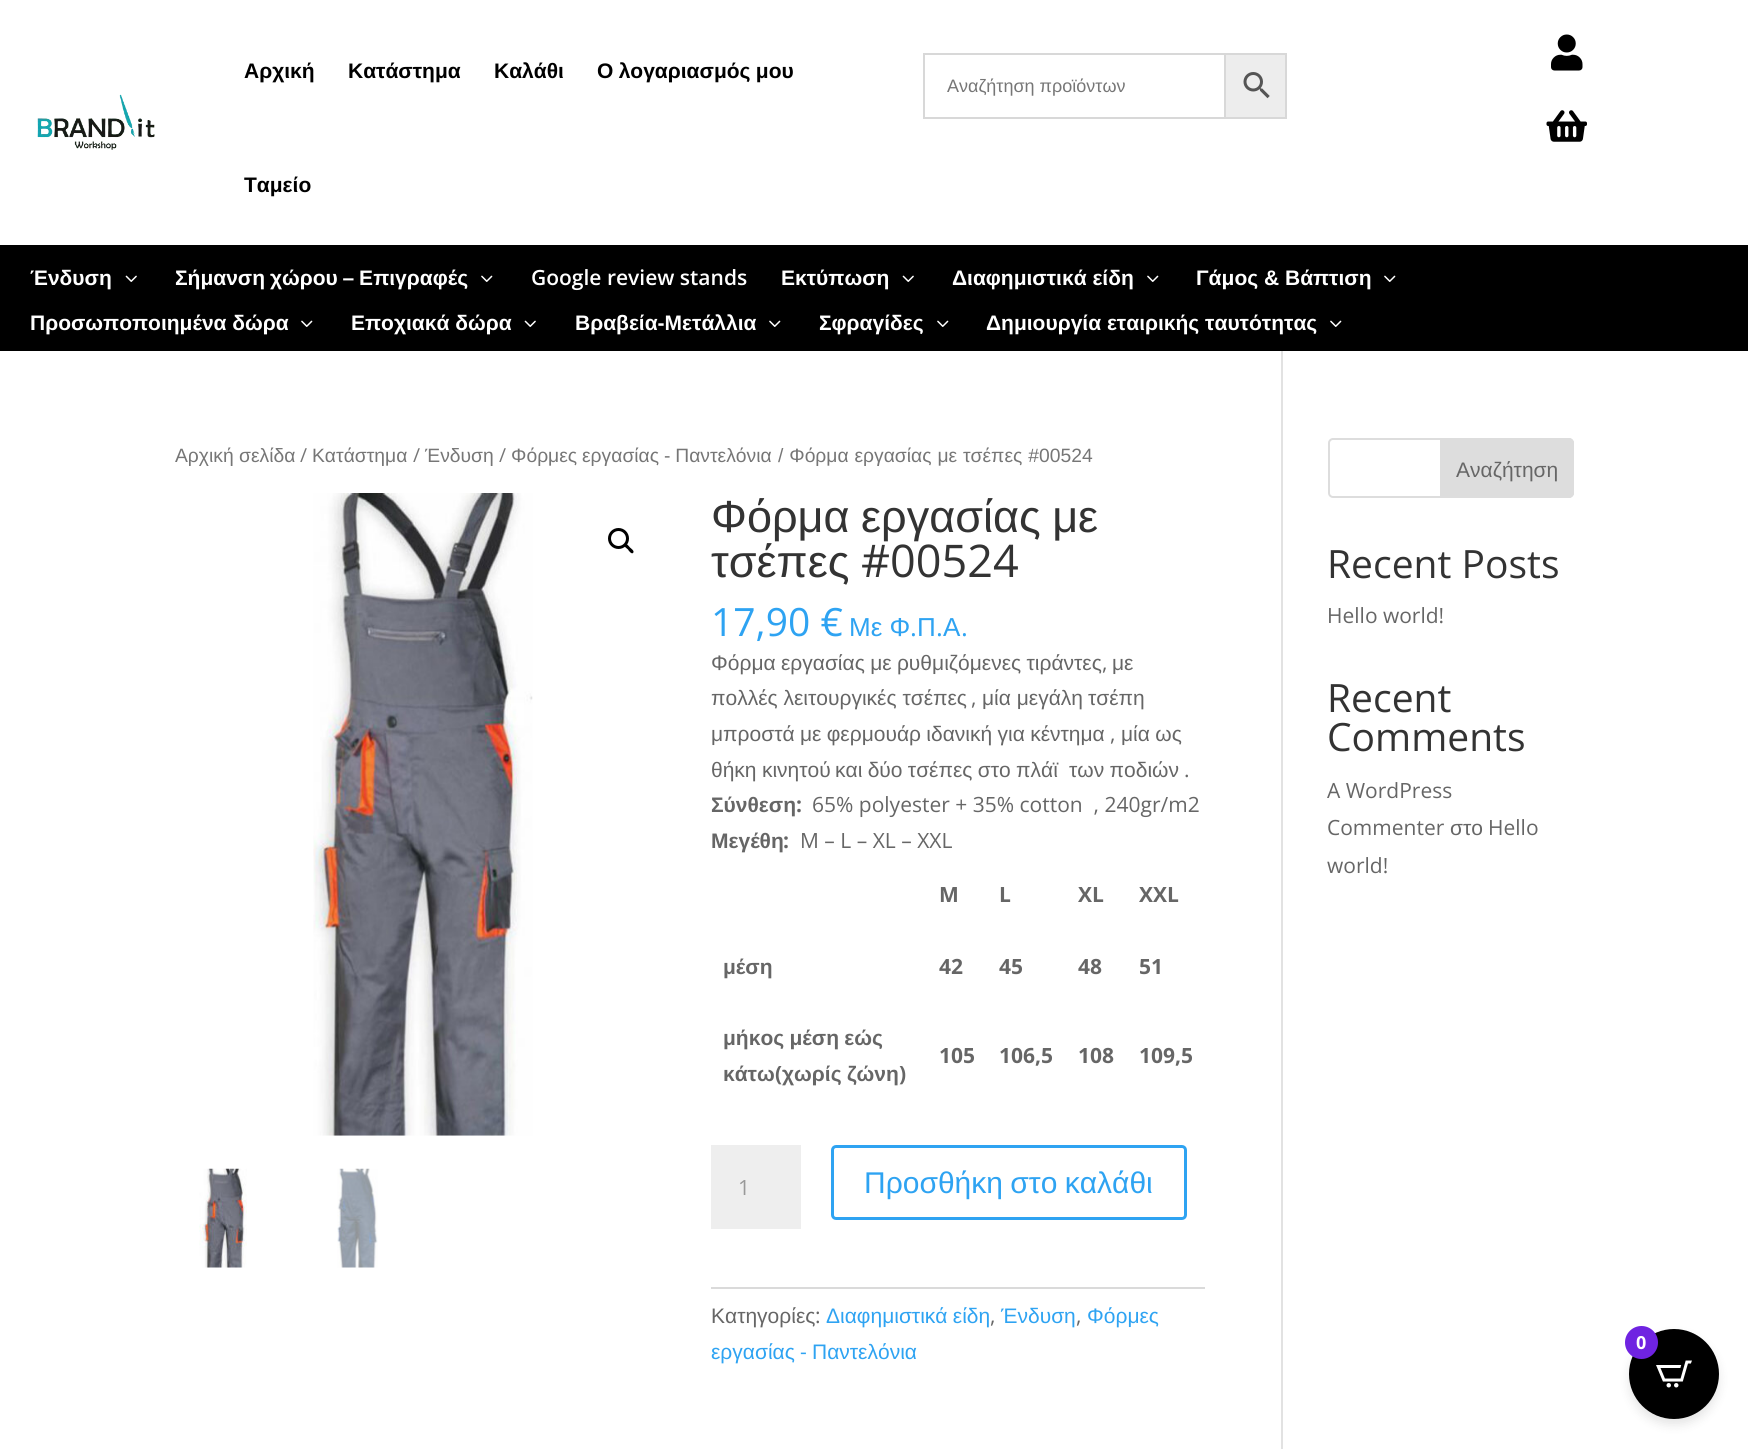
import math
import cairo

surface = cairo.ImageSurface(cairo.Format.RGB24, 1748, 1449)
ctx = cairo.Context(surface)
options = cairo.FontOptions()
options.set_hint_metrics(cairo.HintMetrics.OFF)
options.set_hint_style(cairo.HintStyle.NONE)
ctx.set_font_options(options)
ctx.set_miter_limit(4)


def ink(r, g, b):
    ctx.set_source_rgb(r / 255, g / 255, b / 255)


def write(x, y, s, family, size, color, bold=False, italic=False):
    ctx.select_font_face(family, cairo.FontSlant.ITALIC if italic else cairo.FontSlant.NORMAL, cairo.FontWeight.BOLD if bold else cairo.FontWeight.NORMAL)
    ctx.set_font_size(size)
    ink(*color)
    ctx.move_to(x, y)
    ctx.show_text(s)


def write_spaced(x, y, s, letter, word):
    ctx.move_to(x, y)
    for ch in s:
        ctx.show_text(ch)
        ctx.rel_move_to(letter + word * (ch == ' '), 0)


def block(x, y, w, h, *color):
    ink(*color)
    ctx.rectangle(x, y, w, h)
    ctx.fill()


def round_path(x, y, w, h, r):
    ctx.new_sub_path()
    for i, (u, v) in enumerate([(x + w - r, y + h - r), (x + r, y + h - r), (x + r, y + r), (x + w - r, y + r)]):
        ctx.arc(u, v, r, i * math.pi / 2, (i + 1) * math.pi / 2)
    ctx.close_path()


def blur_box(x, y, w, h, r, blur, alpha):
    ctx.push_group_with_content(cairo.Content.ALPHA)
    ctx.set_operator(cairo.Operator.SOURCE)
    for i in range(15, -16, -2):
        e = blur * i / 6
        if min(w, h) + 2 * e > 0:
            ctx.set_source_rgba(0, 0, 0, alpha * math.erfc((i - 1) / 8.5) / 2)
            round_path(x - e, y - e, w + 2 * e, h + 2 * e, max(0, min(r + e + blur * .6, min(w, h) / 2 + e)))
            ctx.fill()
    ctx.mask(ctx.pop_group())


def paste(path, x, y, w, h):
    ctx.save()
    ctx.set_source_surface(cairo.ImageSurface.create_from_png(path), x, y)
    ctx.rectangle(x, y, w, h)
    ctx.fill()
    ctx.restore()


s1 = dict(family="Liberation Sans", size=21, color=(0, 0, 0), bold=True)
s2 = dict(family="Liberation Sans", size=18, color=(118, 118, 118))
s3 = dict(family="Liberation Sans", size=21, color=(255, 255, 255), bold=True)
s4 = dict(family="Open Sans SemiBold", size=21, color=(255, 255, 255))
s5 = dict(family="Liberation Sans", size=19.3, color=(118, 118, 118))
s6 = dict(family="Open Sans", size=19.3, color=(118, 118, 118))
s7 = dict(family="Liberation Sans", size=45, color=(51, 51, 51))
s8 = dict(family="Open Sans", size=45, color=(51, 51, 51))
s9 = dict(family="Open Sans", size=39, color=(46, 163, 242))
s10 = dict(family="Liberation Sans", size=26, color=(46, 163, 242))
s11 = dict(family="Open Sans", size=26, color=(46, 163, 242))
s12 = dict(family="Open Sans", size=21, color=(102, 102, 102))
s13 = dict(family="Liberation Sans", size=21, color=(102, 102, 102))
s14 = dict(family="Liberation Sans", size=21, color=(102, 102, 102), bold=True)
s15 = dict(family="Open Sans", size=21, color=(102, 102, 102), bold=True)
s16 = dict(family="Open Sans", size=21, color=(153, 153, 153))
s17 = dict(family="Liberation Sans", size=21, color=(46, 163, 242))
s18 = dict(family="Open Sans", size=21, color=(46, 163, 242))
s19 = dict(family="Open Sans", size=39, color=(51, 51, 51))
s20 = dict(family="Open Sans", size=18, color=(255, 255, 255), bold=True)

ink(255, 255, 255)
ctx.paint()
paste("pic1.png", 37, 94, 118, 56)
write(244, 78, "Αρχική", **s1)
write(348, 78, "Κατάστημα", **s1)
write(494, 78, "Καλάθι", **s1)
write_spaced(597, 78, "Ο λογαριασμός μου", 0, -0.5)
write(244, 192, "Ταμείο", **s1)
ink(237, 237, 237)
ctx.rectangle(1225, 54, 61, 64)
ctx.fill_preserve()
ink(216, 216, 216)
ctx.stroke()
ctx.rectangle(924, 54, 301, 64)
ctx.stroke()
write(947, 92, "Αναζήτηση προϊόντων", **s2)
paste("pic2.png", 1243, 72, 27, 27)
paste("pic3.png", 1551, 34, 32, 37)
paste("pic4.png", 1546, 110, 41, 32)
block(0, 245, 1748, 106, 0, 0, 0)
write(30, 285, "Ένδυση", **s3)
paste("pic5.png", 125, 275, 12, 7)
write_spaced(175, 285, "Σήμανση χώρου – Επιγραφές", 0, -1)
paste("pic6.png", 481, 275, 12, 7)
write(531, 285, "Google review stands", **s4)
write(781, 285, "Εκτύπωση", **s3)
paste("pic5.png", 902, 275, 12, 7)
write(952, 285, "Διαφημιστικά είδη", **s3)
paste("pic6.png", 1147, 275, 12, 7)
write(1196, 285, "Γάμος & Βάπτιση", **s3)
paste("pic6.png", 1384, 275, 12, 7)
write(30, 330, "Προσωποποιημένα δώρα", **s3)
paste("pic6.png", 301, 320, 12, 7)
write(351, 330, "Εποχιακά δώρα", **s3)
paste("pic5.png", 524, 320, 12, 7)
write(575, 330, "Βραβεία-Μετάλλια", **s3)
paste("pic6.png", 769, 320, 12, 7)
write(819, 330, "Σφραγίδες", **s3)
paste("pic6.png", 937, 320, 12, 7)
write(986, 330, "Δημιουργία εταιρικής ταυτότητας", **s3)
paste("pic6.png", 1330, 320, 12, 7)
block(1281, 351, 2, 1098, 226, 226, 226)
write(175, 462, "Αρχική σελίδα", **s5)
write(300, 462, "/", **s6)
write(312, 462, "Κατάστημα", **s5)
write(413, 462, "/", **s6)
write(425, 462, "Ένδυση", **s5)
write(499, 462, "/", **s6)
ctx.select_font_face("Liberation Sans")
write_spaced(511, 462, "Φόρμες εργασίας - Παντελόνια", 0, -0.5)
write_spaced(778, 462, "/ Φόρμα εργασίας με τσέπες #00524", 0, 0.5)
paste("pic7.png", 313, 493, 220, 643)
ctx.arc(618.5, 538.5, 9, 0, 2 * math.pi)
ink(0, 0, 0)
ctx.set_line_width(3)
ctx.stroke()
ctx.new_path()
ctx.move_to(624.5, 544.5)
ctx.curve_to(626.5, 542.5, 629, 546.5, 630, 547.5)
ctx.curve_to(631, 548.5, 635, 551, 633, 553)
ctx.curve_to(631.5, 554.5, 628.5, 550.5, 628, 549.5)
ctx.curve_to(627, 548.5, 623, 546, 624.5, 544.5)
ctx.close_path()
ctx.fill()
paste("pic8.png", 199, 1168, 48, 100)
paste("pic9.png", 337, 1168, 41, 100)
ctx.set_font_size(45)
ink(51, 51, 51)
write_spaced(711, 532, "Φόρμα εργασίας με", 0, -1)
write(711, 577, "τσέπες", **s7)
write(861, 577, "#00524", **s8)
write(711, 636, "17,90 €", **s9)
write(849, 636, "Με Φ", **s10)
write(910, 636, ".", **s11)
write(917, 636, "Π", **s10)
write(936, 636, ".", **s11)
write(943, 636, "Α", **s10)
write(961, 636, ".", **s11)
ctx.select_font_face("Liberation Sans")
ctx.set_font_size(21)
ink(102, 102, 102)
write_spaced(711, 670, "Φόρμα εργασίας με ρυθμιζόμενες τιράντες", 0, -0.5)
write(1102, 670, ",", **s12)
write(1112, 670, "με", **s13)
write(711, 705, "πολλές λειτουργικές τσέπες", **s13)
write(971, 705, ",", **s12)
write(982, 705, "μία μεγάλη", **s13)
write(1088, 705, "τσέπη", **s13)
write_spaced(711, 741, "μπροστά με φερμουάρ ιδανική για κέντημα", 0, -0.5)
write(1110, 741, ",", **s12)
ctx.select_font_face("Liberation Sans")
write_spaced(1121, 741, "μία ως", 0, -0.5)
write_spaced(711, 777, "θήκη κινητού", 0, -0.5)
write_spaced(835, 777, "και δύο τσέπες στο πλάϊ", 0, -0.5)
write_spaced(1069, 777, "των ποδιών", 0, -0.5)
write(1184, 777, ".", **s12)
write(711, 812, "Σύνθεση", **s14)
write(796, 812, ":", **s15)
write(812, 812, "65% polyester + 35% cotton  , 240gr/m2", **s12)
write(711, 848, "Μεγέθη", **s14)
write(783, 848, ":", **s15)
write(800, 848, "M – L – XL – XXL", **s12)
write(939, 902, "M", **s15)
write(999, 902, "L", **s15)
write(1078, 902, "XL", **s15)
write(1139, 902, "XXL", **s15)
write(723, 974, "μέση", **s14)
write(939, 974, "42", **s15)
write(999, 974, "45", **s15)
write(1078, 974, "48", **s15)
write(1139, 974, "51", **s15)
ctx.select_font_face("Liberation Sans", cairo.FontSlant.NORMAL, cairo.FontWeight.BOLD)
write_spaced(723, 1045, "μήκος μέση εώς", 0, -0.5)
write(723, 1081, "κάτω", **s14)
write(775, 1081, "(", **s15)
ctx.select_font_face("Liberation Sans", cairo.FontSlant.NORMAL, cairo.FontWeight.BOLD)
write_spaced(782, 1081, "χωρίς ζώνη", 0, -0.5)
write(899, 1081, ")", **s15)
write(939, 1063, "105", **s15)
write(999, 1063, "106,5", **s15)
write(1078, 1063, "108", **s15)
write(1139, 1063, "109,5", **s15)
block(711, 1145, 90, 84, 238, 238, 238)
write(738, 1195, "1", **s16)
round_path(832.5, 1146.5, 353, 72, 3.5)
ink(46, 163, 242)
ctx.stroke()
ctx.select_font_face("Liberation Sans")
ctx.set_font_size(30)
write_spaced(864, 1193, "Προσθήκη στο καλάθι", 0, -1)
block(711, 1287, 494, 2, 218, 218, 218)
write(711, 1323, "Κατηγορίες", **s13)
write(815, 1323, ":", **s12)
ctx.select_font_face("Liberation Sans")
ink(46, 163, 242)
write_spaced(826, 1323, "Διαφημιστικά είδη", 0, -0.5)
write(990, 1323, ",", **s12)
write(1001, 1323, "Ένδυση", **s17)
write(1076, 1323, ",", **s12)
write(1087, 1323, "Φόρμες", **s17)
write(711, 1359, "εργασίας", **s17)
write(800, 1359, "-", **s18)
write(812, 1359, "Παντελόνια", **s17)
round_path(1329, 439, 244, 58, 4)
ink(221, 221, 221)
ctx.set_line_width(2)
ctx.stroke()
ctx.new_path()
ctx.move_to(1441, 439)
ctx.line_to(1569, 439)
ctx.curve_to(1571, 439, 1573, 441, 1573, 443)
ctx.line_to(1573, 493)
ctx.curve_to(1573, 495, 1571, 497, 1569, 497)
ctx.line_to(1441, 497)
ctx.close_path()
ctx.fill_preserve()
ctx.stroke()
write(1456, 477, "Αναζήτηση", **s13)
write(1327, 578, "Recent Posts", **s19)
write(1327, 623, "Hello world!", **s12)
write(1327, 712, "Recent", **s19)
write(1327, 751, "Comments", **s19)
write(1327, 798, "A WordPress", **s12)
write(1327, 835, "Commenter", **s12)
write(1450, 835, "στο", **s13)
write(1488, 835, "Hello", **s12)
write(1327, 873, "world!", **s12)
ink(0, 0, 0)
blur_box(1629, 1335, 90, 90, 45, 5, 0.1)
ink(0, 0, 0)
ctx.arc(1674, 1374, 45, 0, 2 * math.pi)
ctx.fill()
ink(111, 35, 225)
ctx.arc(1641.5, 1342.5, 16.5, 0, 2 * math.pi)
ctx.fill()
write(1636, 1349, "0", **s20)
paste("pic10.png", 1656, 1360, 36, 28)
surface.write_to_png("screenshot.png")
